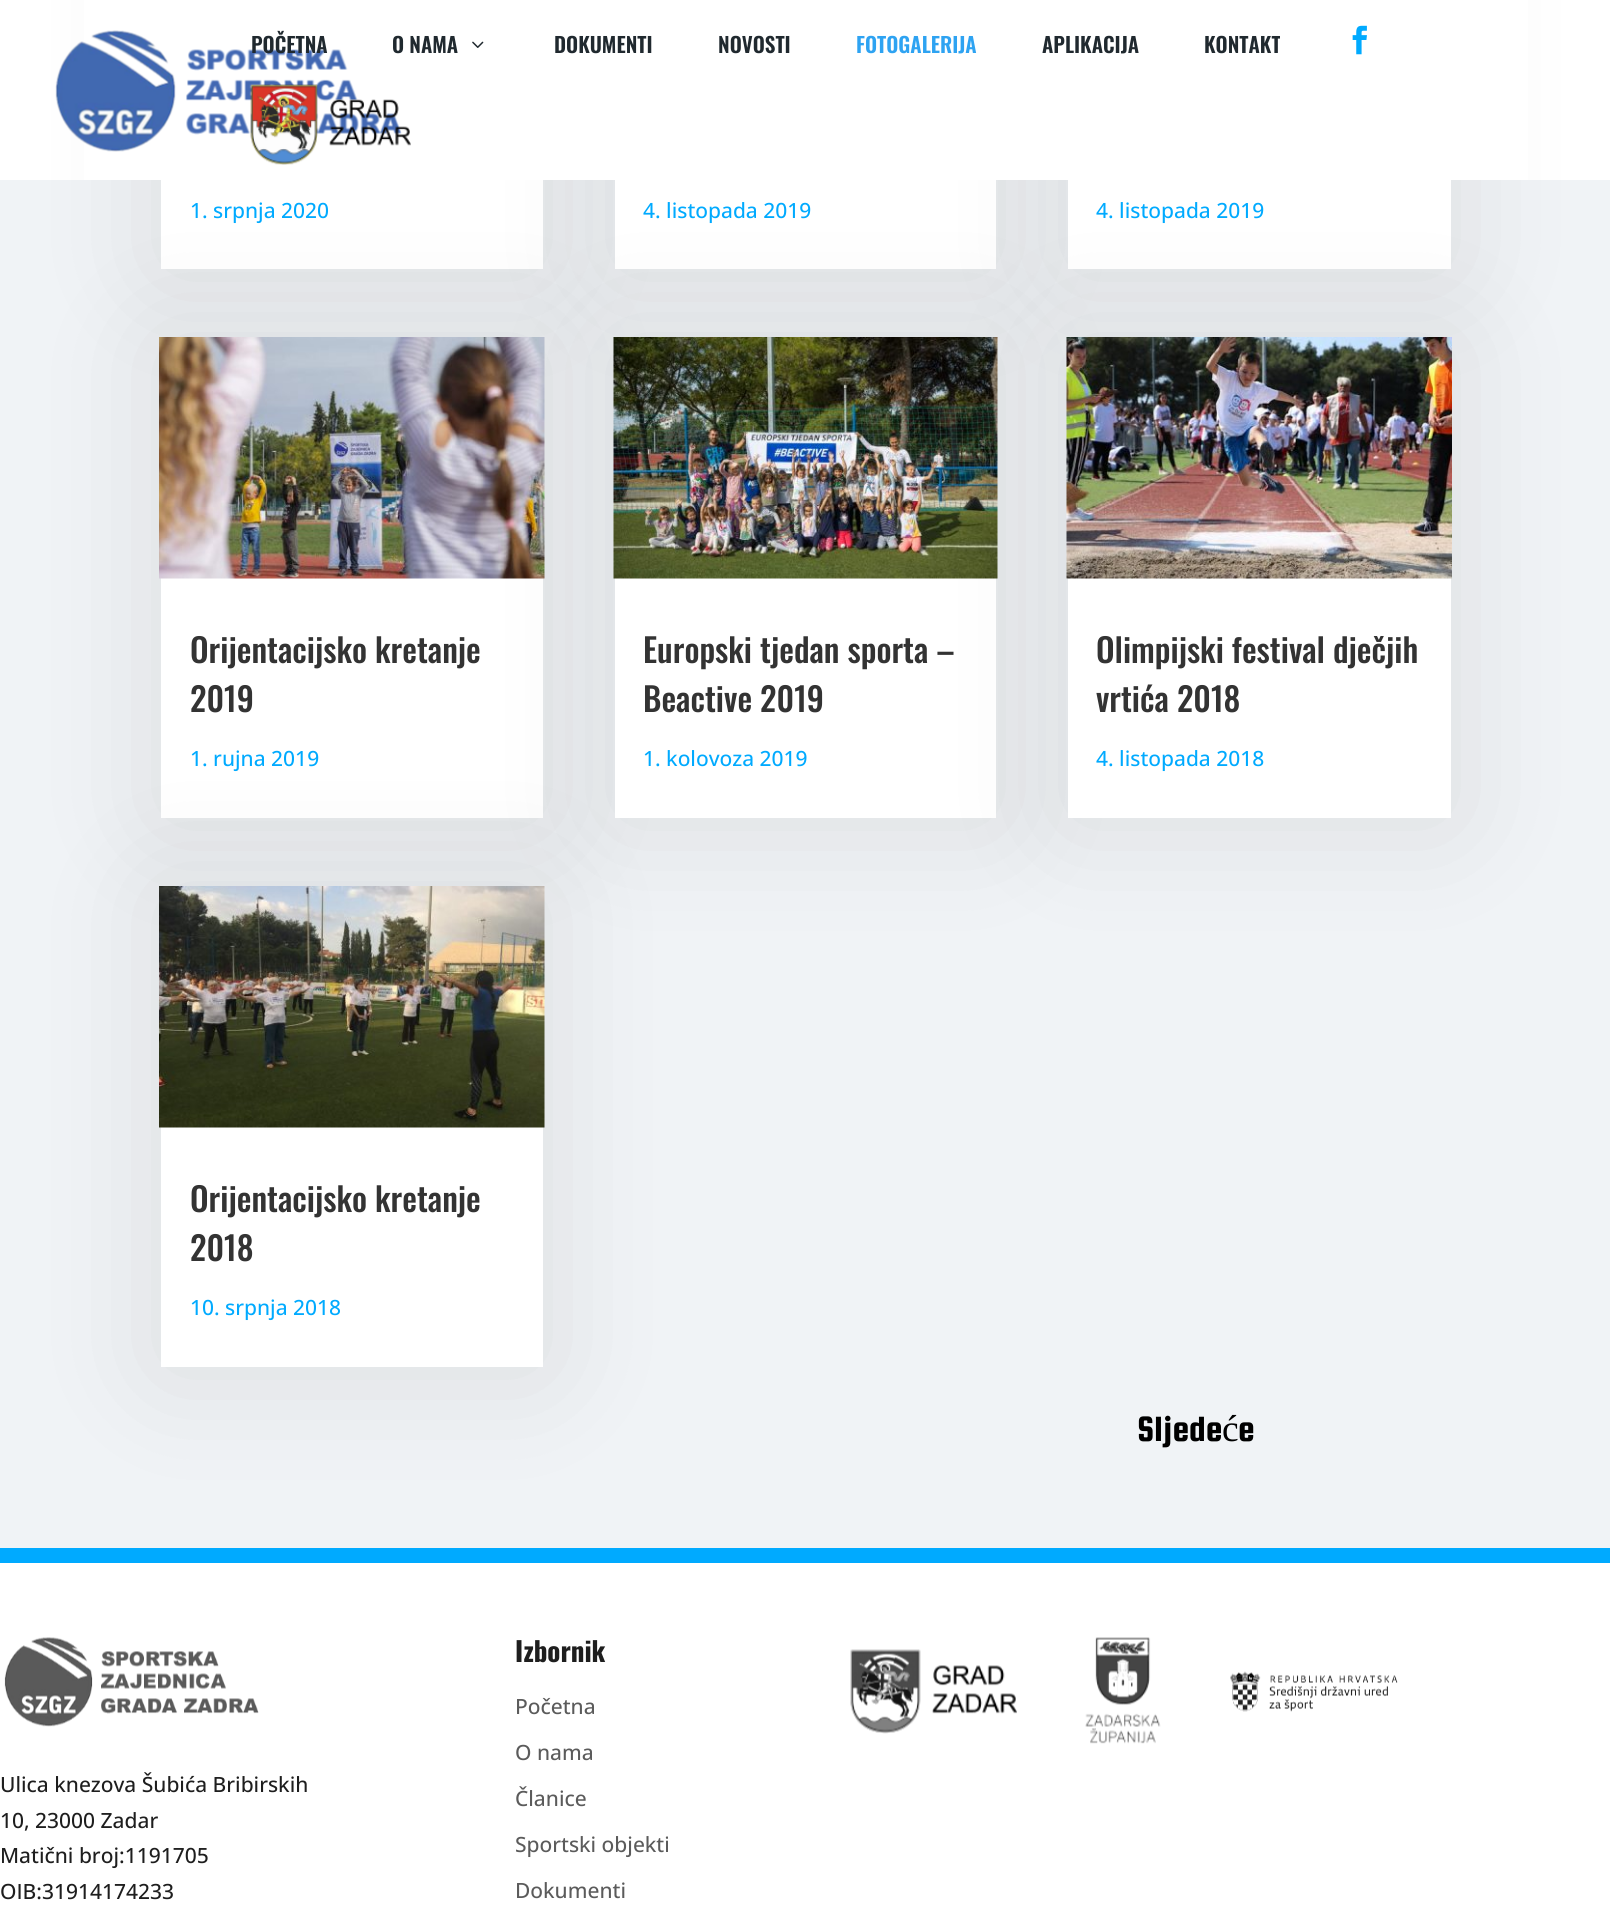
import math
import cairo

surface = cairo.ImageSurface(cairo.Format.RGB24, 1610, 1908)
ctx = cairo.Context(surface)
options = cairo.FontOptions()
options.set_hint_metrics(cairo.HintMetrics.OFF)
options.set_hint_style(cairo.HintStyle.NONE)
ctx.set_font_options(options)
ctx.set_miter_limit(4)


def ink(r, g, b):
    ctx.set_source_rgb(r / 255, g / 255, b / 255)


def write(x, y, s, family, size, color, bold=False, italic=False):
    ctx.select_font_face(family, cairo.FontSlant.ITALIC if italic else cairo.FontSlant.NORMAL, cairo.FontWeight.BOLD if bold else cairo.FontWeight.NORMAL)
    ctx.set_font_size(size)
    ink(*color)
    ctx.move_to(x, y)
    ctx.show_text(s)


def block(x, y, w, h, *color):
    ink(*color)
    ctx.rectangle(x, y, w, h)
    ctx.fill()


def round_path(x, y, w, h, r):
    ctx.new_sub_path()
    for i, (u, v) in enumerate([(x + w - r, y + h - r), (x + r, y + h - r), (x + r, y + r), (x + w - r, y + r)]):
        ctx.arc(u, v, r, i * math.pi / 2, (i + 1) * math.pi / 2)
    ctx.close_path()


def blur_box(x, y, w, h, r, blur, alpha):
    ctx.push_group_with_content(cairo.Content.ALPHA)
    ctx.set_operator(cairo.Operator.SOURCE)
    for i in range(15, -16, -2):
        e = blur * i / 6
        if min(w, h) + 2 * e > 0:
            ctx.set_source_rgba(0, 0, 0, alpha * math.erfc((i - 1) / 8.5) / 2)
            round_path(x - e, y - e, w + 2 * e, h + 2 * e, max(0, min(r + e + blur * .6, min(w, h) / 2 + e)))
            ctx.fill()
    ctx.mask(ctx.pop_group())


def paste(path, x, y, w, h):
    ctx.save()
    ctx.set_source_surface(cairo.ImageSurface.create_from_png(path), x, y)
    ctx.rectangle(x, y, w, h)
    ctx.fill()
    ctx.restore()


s1 = dict(family="Oswald SemiBold", size=21, color=(32, 41, 47))
s2 = dict(family="Oswald SemiBold", size=21, color=(46, 163, 242))
s3 = dict(family="Open Sans Medium", size=21, color=(0, 170, 255))
s4 = dict(family="Oswald Medium", size=33, color=(51, 51, 51))
s5 = dict(family="Squada One", size=37.5, color=(0, 0, 0))
s6 = dict(family="Liberation Serif", size=37.5, color=(0, 0, 0))
s7 = dict(family="Open Sans Medium", size=21, color=(30, 30, 30))
s8 = dict(family="Oswald", size=27, color=(30, 30, 30), bold=True)
s9 = dict(family="Open Sans Medium", size=21, color=(91, 91, 91))

ink(255, 255, 255)
ctx.paint()
block(0, 180, 1610, 1368, 240, 243, 246)
ink(0, 0, 0)
blur_box(161, -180, 382, 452, 0, 60, 0.1)
block(161, 180, 382, 89, 255, 255, 255)
ink(0, 0, 0)
blur_box(161, 342, 382, 479, 0, 60, 0.1)
blur_box(615, -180, 381, 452, 0, 60, 0.1)
block(161, 578, 382, 240, 255, 255, 255)
block(615, 180, 381, 89, 255, 255, 255)
ink(0, 0, 0)
blur_box(615, 342, 381, 479, 0, 60, 0.1)
blur_box(1068, -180, 383, 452, 0, 60, 0.1)
block(0, 1548, 1610, 15, 0, 170, 255)
ink(0, 0, 0)
blur_box(161, 891, 382, 479, 0, 60, 0.1)
block(615, 578, 381, 240, 255, 255, 255)
block(1068, 180, 383, 89, 255, 255, 255)
ink(0, 0, 0)
blur_box(1068, 342, 383, 479, 0, 60, 0.1)
block(84, 0, 1444, 180, 255, 255, 255)
paste("pic1.png", 55, 30, 347, 122)
write(251, 53, "POČETNA", **s1)
write(392, 53, "O NAMA", **s1)
paste("pic2.png", 472, 41, 12, 7)
write(554, 53, "DOKUMENTI", **s1)
write(718, 53, "NOVOSTI", **s1)
write(856, 53, "FOTOGALERIJA", **s2)
write(1042, 53, "APLIKACIJA", **s1)
write(1204, 53, "KONTAKT", **s1)
paste("pic3.png", 1352, 25, 15, 30)
paste("pic4.png", 250, 84, 161, 81)
write(190, 218, "1. srpnja 2020", **s3)
paste("pic5.png", 159, 337, 386, 242)
write(190, 663, "Orijentacijsko kretanje", **s4)
write(190, 712, "2019", **s4)
write(190, 766, "1. rujna 2019", **s3)
block(161, 1127, 382, 240, 255, 255, 255)
paste("pic6.png", 159, 886, 386, 242)
write(190, 1212, "Orijentacijsko kretanje", **s4)
write(190, 1261, "2018", **s4)
write(190, 1315, "10. srpnja 2018", **s3)
write(643, 218, "4. listopada 2019", **s3)
paste("pic7.png", 613, 337, 385, 242)
write(643, 663, "Europski tjedan sporta –", **s4)
write(643, 712, "Beactive 2019", **s4)
write(643, 766, "1. kolovoza 2019", **s3)
write(1096, 218, "4. listopada 2019", **s3)
block(1068, 578, 383, 240, 255, 255, 255)
paste("pic8.png", 1066, 337, 386, 242)
write(1096, 663, "Olimpijski festival dječjih", **s4)
write(1096, 712, "vrtića 2018", **s4)
write(1096, 766, "4. listopada 2018", **s3)
write(1137, 1441, "Sljede", **s5)
write(1222, 1441, "ć", **s6)
write(1238, 1441, "e", **s5)
paste("pic9.png", 4, 1637, 255, 90)
write(0, 1792, "Ulica knezova Šubića Bribirskih", **s7)
write(0, 1828, "10, 23000 Zadar", **s7)
write(0, 1863, "Matični broj:1191705", **s7)
write(0, 1899, "OIB:31914174233", **s7)
write(515, 1662, "Izbornik", **s8)
write(515, 1714, "Početna", **s9)
write(515, 1760, "O nama", **s9)
write(515, 1806, "Članice", **s9)
write(515, 1852, "Sportski objekti", **s9)
write(515, 1898, "Dokumenti", **s9)
paste("pic10.png", 850, 1649, 167, 85)
paste("pic11.png", 1085, 1637, 76, 107)
paste("pic12.png", 1230, 1671, 168, 41)
surface.write_to_png("screenshot.png")
